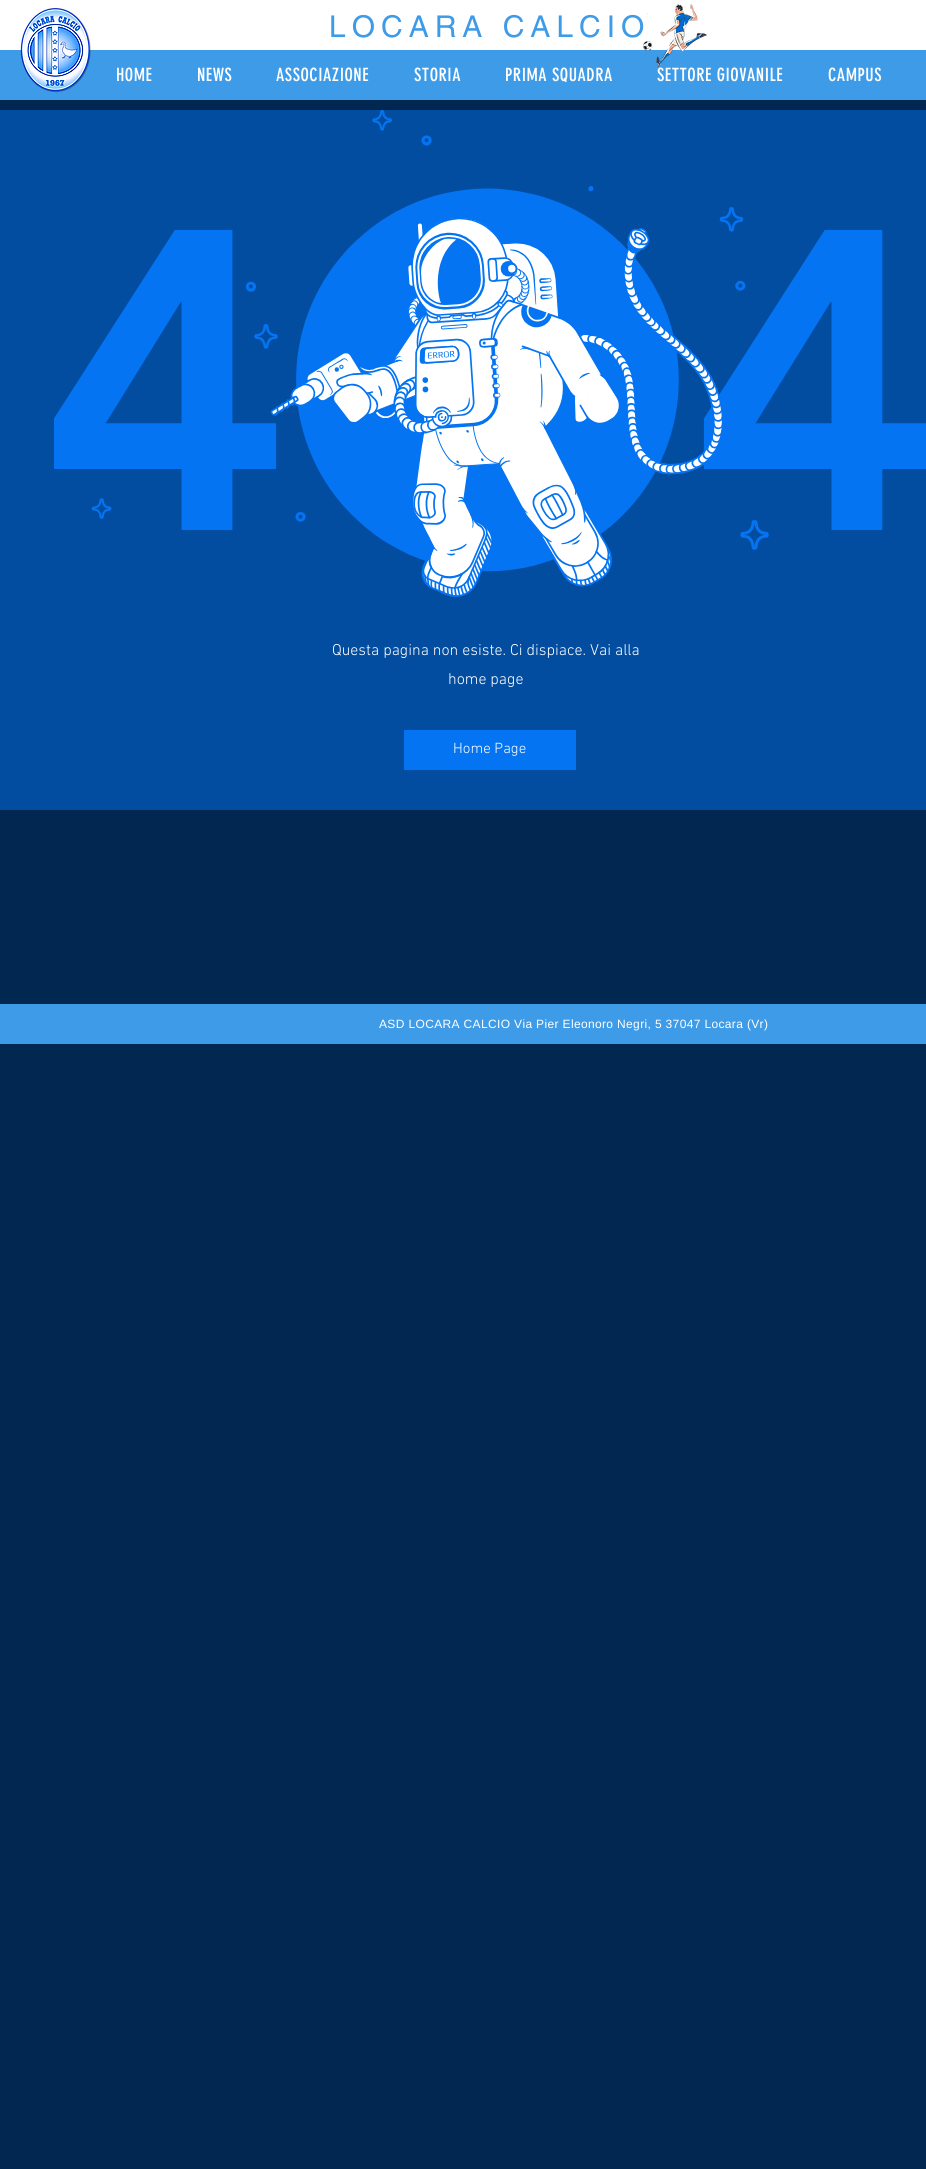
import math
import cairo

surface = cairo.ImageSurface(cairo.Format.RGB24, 926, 2169)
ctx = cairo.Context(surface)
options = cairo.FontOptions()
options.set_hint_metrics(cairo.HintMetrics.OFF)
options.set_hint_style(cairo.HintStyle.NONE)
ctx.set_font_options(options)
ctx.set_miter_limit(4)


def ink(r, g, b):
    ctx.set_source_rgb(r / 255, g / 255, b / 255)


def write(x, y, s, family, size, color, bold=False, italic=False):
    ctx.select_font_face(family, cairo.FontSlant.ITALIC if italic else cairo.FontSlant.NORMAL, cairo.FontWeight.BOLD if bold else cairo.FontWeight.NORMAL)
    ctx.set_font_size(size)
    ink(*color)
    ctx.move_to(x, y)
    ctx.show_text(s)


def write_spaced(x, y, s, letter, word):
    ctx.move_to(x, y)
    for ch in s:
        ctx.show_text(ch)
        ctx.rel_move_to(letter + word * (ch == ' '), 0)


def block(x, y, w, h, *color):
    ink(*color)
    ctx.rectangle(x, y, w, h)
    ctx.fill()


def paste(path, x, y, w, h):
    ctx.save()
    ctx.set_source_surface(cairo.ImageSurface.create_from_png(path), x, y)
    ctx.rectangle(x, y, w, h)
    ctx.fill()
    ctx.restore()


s1 = dict(family="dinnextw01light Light", size=16, color=(255, 255, 255))
s2 = dict(family="dinnextw01light Light", size=15, color=(255, 255, 255))

ink(2, 39, 81)
ctx.paint()
block(0, 0, 926, 50, 255, 255, 255)
block(0, 50, 926, 50, 61, 155, 232)
paste("pic1.png", 20, 8, 71, 85)
ctx.select_font_face("helvetica")
ctx.set_font_size(30)
write_spaced(329, 37, "LOCARA CALCIO", 6, 0)
ctx.select_font_face("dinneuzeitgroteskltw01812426")
ctx.set_font_size(18)
ink(255, 255, 255)
write_spaced(657, 81, "SETTORE GIOVANILE", 0.5, 0)
paste("pic2.png", 643, 4, 65, 64)
write_spaced(116, 81, "HOME", 0.5, 0)
write_spaced(197, 81, "NEWS", 0.5, 0)
write_spaced(276, 81, "ASSOCIAZIONE", 0.5, 0)
write_spaced(414, 81, "STORIA", 0.5, 0)
write_spaced(505, 81, "PRIMA SQUADRA", 0.5, 0)
write_spaced(828, 81, "CAMPUS", 0.5, 0)
block(0, 110, 926, 700, 3, 77, 161)
paste("pic3.png", 54, 110, 872, 487)
write(332, 655, "Questa pagina non esiste. Ci dispiace. Vai alla", **s1)
write(448, 684, "home page", **s1)
block(404, 730, 172, 40, 5, 116, 242)
write(453, 753, "Home Page", **s2)
block(0, 1004, 926, 40, 61, 155, 232)
ctx.select_font_face("Liberation Sans")
ctx.set_font_size(12)
ink(255, 255, 255)
write_spaced(379, 1028, "ASD LOCARA CALCIO Via Pier Eleonoro Negri, 5 37047 Locara (Vr)", 0.35, 0)
surface.write_to_png("screenshot.png")
